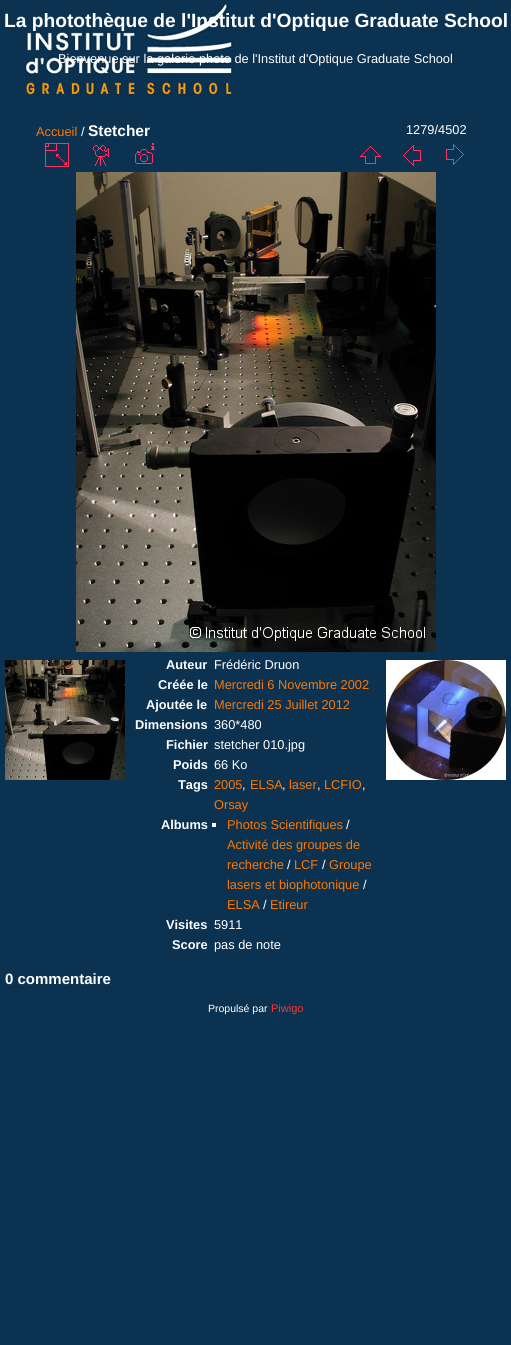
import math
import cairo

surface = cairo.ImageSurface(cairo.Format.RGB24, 511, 1345)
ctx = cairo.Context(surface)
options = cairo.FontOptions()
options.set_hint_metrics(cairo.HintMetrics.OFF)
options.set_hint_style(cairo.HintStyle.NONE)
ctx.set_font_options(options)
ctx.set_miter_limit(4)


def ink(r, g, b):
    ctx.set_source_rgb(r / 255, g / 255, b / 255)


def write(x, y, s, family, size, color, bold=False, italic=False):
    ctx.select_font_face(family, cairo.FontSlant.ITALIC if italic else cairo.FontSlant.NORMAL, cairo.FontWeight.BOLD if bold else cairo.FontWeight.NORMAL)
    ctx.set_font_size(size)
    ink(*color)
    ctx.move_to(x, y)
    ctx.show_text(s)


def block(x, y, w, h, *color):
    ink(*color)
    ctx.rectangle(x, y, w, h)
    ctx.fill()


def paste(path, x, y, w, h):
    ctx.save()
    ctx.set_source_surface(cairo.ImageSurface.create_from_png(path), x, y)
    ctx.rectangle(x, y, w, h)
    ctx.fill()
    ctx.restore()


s1 = dict(family="Liberation Sans", size=19.2, color=(255, 255, 255), bold=True)
s2 = dict(family="Liberation Sans", size=12.8, color=(255, 255, 255))
s3 = dict(family="Liberation Sans", size=12.8, color=(255, 119, 0))
s4 = dict(family="Liberation Sans", size=15.5, color=(255, 255, 255), bold=True)
s5 = dict(family="Liberation Sans", size=12.8, color=(255, 255, 255), bold=True)
s6 = dict(family="Liberation Sans", size=15, color=(255, 255, 255), bold=True)
s7 = dict(family="Liberation Sans", size=10.5, color=(255, 255, 255))
s8 = dict(family="Liberation Sans", size=11, color=(255, 51, 51))

ink(11, 50, 81)
ctx.paint()
paste("pic1.png", 24, 0, 209, 96)
write(4, 27, "La photothèque de l'Institut d'Optique Graduate School", **s1)
write(58, 63, "Bienvenue sur la galerie photo de l'Institut d'Optique Graduate School", **s2)
write(36, 136, "Accueil", **s3)
write(81, 136, "/", **s2)
write(88, 136, "Stetcher", **s4)
write(406, 134, "1279/4502", **s2)
paste("pic2.png", 45, 143, 24, 24)
paste("pic3.png", 93, 145, 16, 21)
paste("pic4.png", 135, 143, 20, 21)
paste("pic5.png", 360, 146, 21, 18)
paste("pic6.png", 403, 145, 18, 21)
paste("pic7.png", 446, 144, 18, 21)
paste("pic8.png", 76, 172, 360, 480)
write(166, 669, "Auteur", **s5)
write(214, 669, "Frédéric Druon", **s2)
write(158, 689, "Créée le", **s5)
write(214, 689, "Mercredi 6 Novembre 2002", **s3)
write(146, 709, "Ajoutée le", **s5)
write(214, 709, "Mercredi 25 Juillet 2012", **s3)
write(135, 729, "Dimensions", **s5)
write(214, 729, "360*480", **s2)
write(166, 749, "Fichier", **s5)
write(214, 749, "stetcher 010.jpg", **s2)
write(173, 769, "Poids", **s5)
write(214, 769, "66 Ko", **s2)
write(178, 789, "Tags", **s5)
write(214, 789, "2005", **s3)
write(242, 789, ",", **s2)
write(250, 789, "ELSA", **s3)
write(282, 789, ",", **s2)
write(289, 789, "laser", **s3)
write(317, 789, ",", **s2)
write(324, 789, "LCFIO", **s3)
write(362, 789, ",", **s2)
write(214, 809, "Orsay", **s3)
write(161, 829, "Albums", **s5)
block(212, 823, 4, 4, 255, 255, 255)
write(227, 829, "Photos Scientifiques", **s3)
write(346, 829, "/", **s2)
write(227, 849, "Activité des groupes de", **s3)
write(227, 869, "recherche", **s3)
write(287, 869, "/", **s2)
write(294, 869, "LCF", **s3)
write(322, 869, "/", **s2)
write(329, 869, "Groupe", **s3)
write(227, 889, "lasers et biophotonique", **s3)
write(363, 889, "/", **s2)
write(227, 909, "ELSA", **s3)
write(263, 909, "/", **s2)
write(270, 909, "Etireur", **s3)
write(166, 929, "Visites", **s5)
write(214, 929, "5911", **s2)
write(172, 949, "Score", **s5)
write(214, 949, "pas de note", **s2)
paste("pic9.png", 5, 660, 120, 120)
paste("pic10.png", 386, 660, 120, 120)
write(5, 984, "0 commentaire", **s6)
write(208, 1012, "Propulsé par", **s7)
write(271, 1012, "Piwigo", **s8)
surface.write_to_png("screenshot.png")
